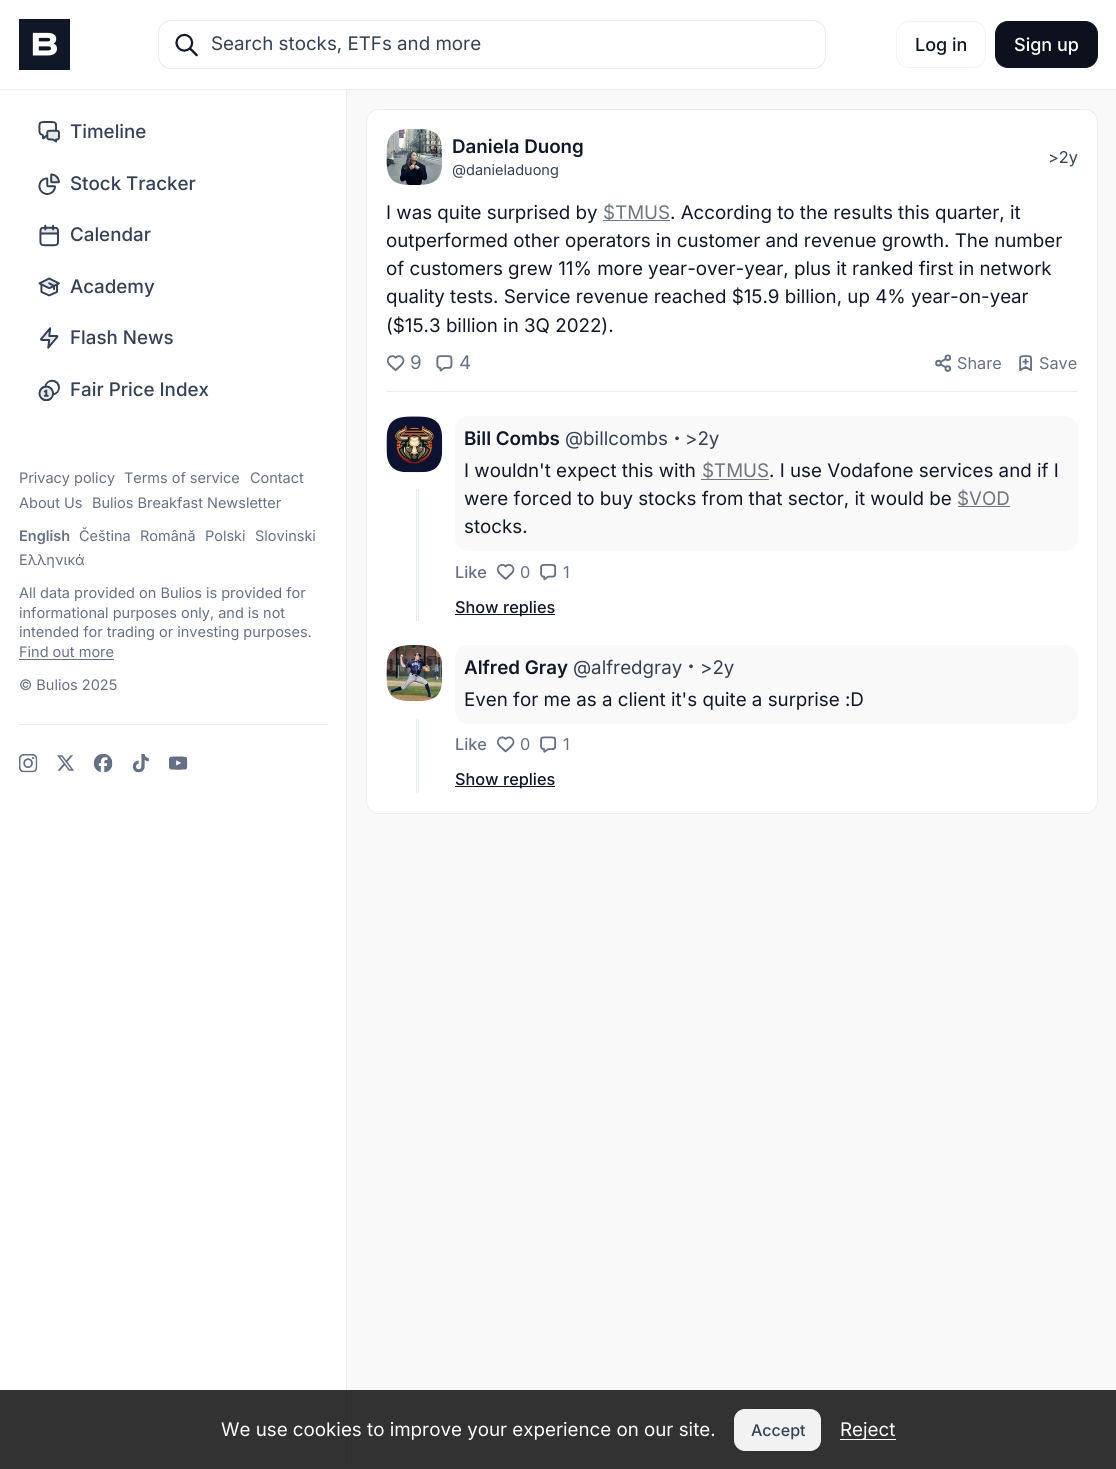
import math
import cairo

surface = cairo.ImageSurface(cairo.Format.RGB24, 1116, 1469)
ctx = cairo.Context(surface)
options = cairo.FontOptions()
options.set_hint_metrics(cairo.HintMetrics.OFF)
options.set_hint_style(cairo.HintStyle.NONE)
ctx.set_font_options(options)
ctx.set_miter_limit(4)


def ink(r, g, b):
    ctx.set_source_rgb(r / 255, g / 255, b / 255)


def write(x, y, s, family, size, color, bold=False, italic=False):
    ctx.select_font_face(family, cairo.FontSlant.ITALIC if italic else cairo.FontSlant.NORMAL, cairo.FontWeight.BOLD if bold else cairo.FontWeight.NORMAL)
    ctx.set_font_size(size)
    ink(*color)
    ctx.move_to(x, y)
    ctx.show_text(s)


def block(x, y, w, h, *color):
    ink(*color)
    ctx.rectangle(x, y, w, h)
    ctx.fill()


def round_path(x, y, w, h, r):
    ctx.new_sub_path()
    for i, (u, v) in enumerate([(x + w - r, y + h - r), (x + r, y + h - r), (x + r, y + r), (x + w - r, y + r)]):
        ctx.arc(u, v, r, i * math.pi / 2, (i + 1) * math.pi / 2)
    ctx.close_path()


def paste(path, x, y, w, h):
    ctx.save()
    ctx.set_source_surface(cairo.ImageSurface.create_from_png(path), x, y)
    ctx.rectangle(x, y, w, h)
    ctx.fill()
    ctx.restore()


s1 = dict(family="Inter", size=18.75, color=(52, 64, 84))
s2 = dict(family="Inter Medium", size=18, color=(16, 24, 40))
s3 = dict(family="Inter Medium", size=18, color=(255, 255, 255))
s4 = dict(family="Inter Medium", size=18.75, color=(52, 64, 84))
s5 = dict(family="Inter", size=14.5, color=(102, 112, 133))
s6 = dict(family="Inter SemiBold", size=14.5, color=(102, 112, 133))
s7 = dict(family="Inter SemiBold", size=18.75, color=(16, 24, 40))
s8 = dict(family="Inter", size=14.5, color=(52, 64, 84))
s9 = dict(family="Inter", size=16.25, color=(52, 64, 84))
s10 = dict(family="Inter", size=18.75, color=(16, 24, 40))
s11 = dict(family="Inter", size=18.75, color=(111, 118, 126))
s12 = dict(family="Inter", size=18.75, color=(102, 112, 133))
s13 = dict(family="Inter", size=16.25, color=(102, 112, 133))
s14 = dict(family="Inter", size=28, color=(52, 64, 84))
s15 = dict(family="Inter Medium", size=16.25, color=(102, 112, 133))
s16 = dict(family="Inter Medium", size=16.25, color=(16, 24, 40))
s17 = dict(family="Inter", size=18.75, color=(255, 255, 255))
s18 = dict(family="Inter Medium", size=16, color=(52, 64, 84))

ink(249, 249, 249)
ctx.paint()
block(0, 1390, 1116, 79, 50, 50, 50)
block(0, 0, 1116, 89, 255, 255, 255)
block(0, 89, 1116, 1, 233, 236, 244)
paste("pic1.png", 19, 19, 51, 51)
round_path(158.5, 20.5, 667, 48, 12.5)
ctx.set_line_width(1)
ctx.stroke()
paste("pic2.png", 175, 33, 23, 24)
write(211, 50, "Search stocks, ETFs and more", **s1)
round_path(896.5, 21.5, 89, 46, 12.5)
ink(242, 242, 242)
ctx.stroke()
write(915, 51, "Log in", **s2)
ink(12, 17, 29)
round_path(995.5, 21.5, 102, 46, 12.5)
ctx.fill_preserve()
ctx.stroke()
write(1014, 51, "Sign up", **s3)
block(0, 90, 346, 1300, 255, 255, 255)
block(346, 90, 1, 1300, 233, 236, 244)
block(346, 1390, 1, 78, 47, 47, 49)
paste("pic3.png", 38, 121, 22, 22)
write(70, 138, "Timeline", **s4)
paste("pic4.png", 38, 173, 22, 22)
write(70, 190, "Stock Tracker", **s4)
paste("pic5.png", 39, 224, 20, 23)
write(70, 241, "Calendar", **s4)
paste("pic6.png", 38, 277, 22, 20)
write(70, 293, "Academy", **s4)
paste("pic7.png", 40, 327, 19, 22)
write(70, 344, "Flash News", **s4)
paste("pic8.png", 38, 379, 22, 23)
write(70, 396, "Fair Price Index", **s4)
write(19, 483, "Privacy policy", **s5)
write(124, 483, "Terms of service", **s5)
write(250, 483, "Contact", **s5)
write(19, 508, "About Us", **s5)
write(92, 508, "Bulios Breakfast Newsletter", **s5)
write(19, 541, "English", **s6)
write(79, 541, "Čeština", **s5)
write(140, 541, "Română", **s5)
write(205, 541, "Polski", **s5)
write(255, 541, "Slovinski", **s5)
write(19, 565, "Ελληνικά", **s5)
write(19, 598, "All data provided on Bulios is provided for", **s5)
write(19, 618, "informational purposes only, and is not", **s5)
write(19, 637, "intended for trading or investing purposes.", **s5)
write(19, 657, "Find out more", **s5)
block(19, 659, 95, 1, 102, 112, 133)
write(19, 690, "© Bulios 2025", **s5)
block(19, 724, 309, 1, 233, 236, 244)
paste("pic9.png", 19, 754, 19, 19)
paste("pic10.png", 57, 755, 17, 16)
paste("pic11.png", 94, 754, 19, 19)
paste("pic12.png", 132, 754, 17, 19)
paste("pic13.png", 169, 756, 19, 14)
ink(255, 255, 255)
round_path(366.5, 109.5, 731, 704, 12.5)
ctx.fill_preserve()
ink(233, 236, 244)
ctx.stroke()
paste("pic14.png", 386, 129, 57, 56)
write(452, 153, "Daniela Duong", **s7)
ctx.save()
ctx.rectangle(453, 161, 106, 20)
ctx.clip()
write(452, 175, "@danieladuong", **s8)
ctx.restore()
write(1048, 163, ">2y", **s9)
write(386, 219, "I was quite surprised by", **s10)
block(603, 220, 67, 1, 111, 118, 126)
write(603, 219, "$TMUS", **s11)
write(670, 219, ". According to the results this quarter, it", **s10)
write(386, 247, "outperformed other operators in customer and revenue growth. The number", **s10)
write(386, 275, "of customers grew 11% more year-over-year, plus it ranked first in network", **s10)
write(386, 303, "quality tests. Service revenue reached $15.9 billion, up 4% year-on-year", **s10)
write(386, 332, "($15.3 billion in 3Q 2022).", **s10)
paste("pic15.png", 386, 355, 19, 16)
write(410, 369, "9", **s12)
paste("pic16.png", 436, 355, 17, 17)
write(459, 369, "4", **s12)
paste("pic17.png", 935, 354, 17, 18)
write(957, 369, "Share", **s13)
paste("pic18.png", 1019, 355, 14, 17)
write(1039, 369, "Save", **s13)
block(386, 391, 692, 1, 236, 238, 245)
paste("pic19.png", 386, 416, 57, 57)
ink(249, 249, 249)
round_path(455, 416, 623, 135, 13)
ctx.fill()
write(464, 445, "Bill Combs", **s7)
write(565, 445, "@billcombs", **s1)
write(673, 448, "·", **s14)
write(685, 445, ">2y", **s1)
write(464, 477, "I wouldn't expect this with", **s10)
write(702, 477, "$TMUS", **s11)
block(701, 479, 68, 1, 111, 118, 126)
write(769, 477, ". I use Vodafone services and if I", **s10)
write(464, 505, "were forced to buy stocks from that sector, it would be", **s10)
block(958, 506, 52, 1, 111, 118, 126)
write(957, 505, "$VOD", **s11)
write(464, 533, "stocks.", **s10)
write(455, 578, "Like", **s15)
paste("pic20.png", 496, 564, 19, 16)
write(520, 578, "0", **s13)
paste("pic21.png", 540, 564, 17, 17)
write(563, 578, "1", **s13)
block(455, 614, 100, 1, 16, 24, 40)
write(455, 613, "Show replies", **s16)
block(418, 489, 1, 132, 233, 236, 244)
block(416, 489, 1, 132, 233, 236, 244)
paste("pic22.png", 386, 645, 57, 56)
ink(249, 249, 249)
round_path(455, 645, 623, 79, 13)
ctx.fill()
write(464, 674, "Alfred Gray", **s7)
write(573, 674, "@alfredgray", **s1)
write(687, 676, "·", **s14)
write(700, 674, ">2y", **s1)
write(464, 706, "Even for me as a client it's quite a surprise :D", **s10)
write(455, 750, "Like", **s15)
paste("pic23.png", 496, 736, 19, 17)
write(520, 750, "0", **s13)
paste("pic24.png", 540, 736, 17, 17)
write(563, 750, "1", **s13)
block(455, 786, 100, 1, 16, 24, 40)
write(455, 785, "Show replies", **s16)
block(418, 718, 1, 76, 233, 236, 244)
block(416, 718, 1, 76, 233, 236, 244)
write(221, 1436, "We use cookies to improve your experience on our site.", **s17)
ink(242, 242, 242)
round_path(734.5, 1409.5, 86, 41, 10.5)
ctx.fill_preserve()
ctx.stroke()
write(751, 1436, "Accept", **s18)
block(840, 1439, 56, 1, 255, 255, 255)
write(840, 1436, "Reject", **s17)
surface.write_to_png("screenshot.png")
